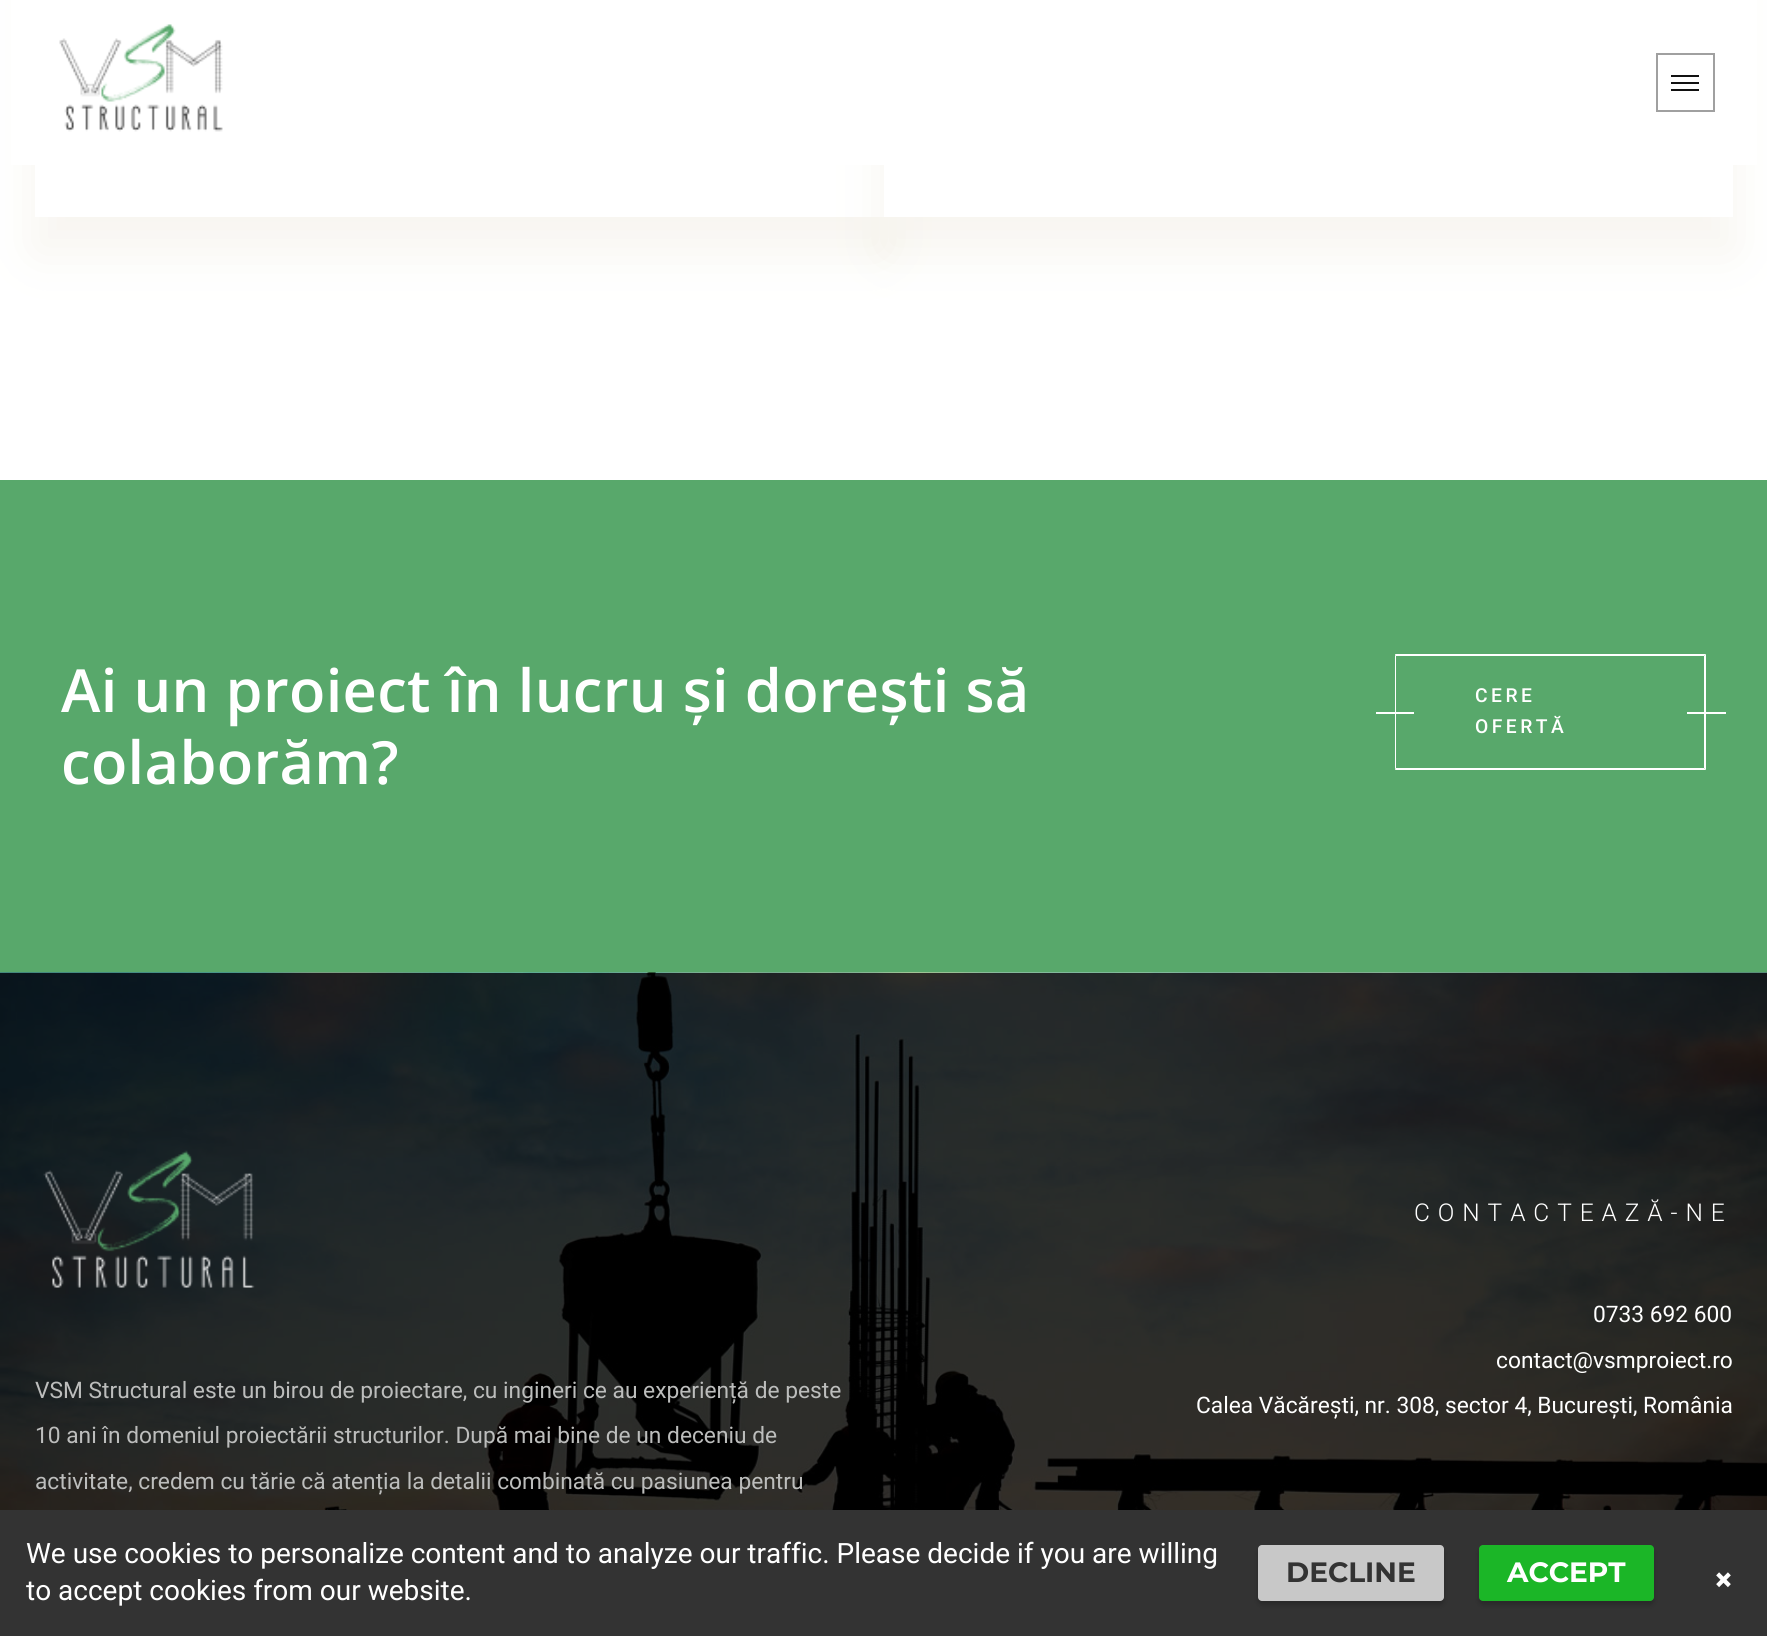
import math
import cairo

surface = cairo.ImageSurface(cairo.Format.RGB24, 1767, 1636)
ctx = cairo.Context(surface)
options = cairo.FontOptions()
options.set_hint_metrics(cairo.HintMetrics.OFF)
options.set_hint_style(cairo.HintStyle.NONE)
ctx.set_font_options(options)
ctx.set_miter_limit(4)


def ink(r, g, b):
    ctx.set_source_rgb(r / 255, g / 255, b / 255)


def write(x, y, s, family, size, color, bold=False, italic=False):
    ctx.select_font_face(family, cairo.FontSlant.ITALIC if italic else cairo.FontSlant.NORMAL, cairo.FontWeight.BOLD if bold else cairo.FontWeight.NORMAL)
    ctx.set_font_size(size)
    ink(*color)
    ctx.move_to(x, y)
    ctx.show_text(s)


def write_spaced(x, y, s, letter, word):
    ctx.move_to(x, y)
    for ch in s:
        ctx.show_text(ch)
        ctx.rel_move_to(letter + word * (ch == ' '), 0)


def block(x, y, w, h, *color):
    ink(*color)
    ctx.rectangle(x, y, w, h)
    ctx.fill()


def round_path(x, y, w, h, r):
    ctx.new_sub_path()
    for i, (u, v) in enumerate([(x + w - r, y + h - r), (x + r, y + h - r), (x + r, y + r), (x + w - r, y + r)]):
        ctx.arc(u, v, r, i * math.pi / 2, (i + 1) * math.pi / 2)
    ctx.close_path()


def blur_box(x, y, w, h, r, blur, alpha):
    ctx.push_group_with_content(cairo.Content.ALPHA)
    ctx.set_operator(cairo.Operator.SOURCE)
    for i in range(15, -16, -2):
        e = blur * i / 6
        if min(w, h) + 2 * e > 0:
            ctx.set_source_rgba(0, 0, 0, alpha * math.erfc((i - 1) / 8.5) / 2)
            round_path(x - e, y - e, w + 2 * e, h + 2 * e, max(0, min(r + e + blur * .6, min(w, h) / 2 + e)))
            ctx.fill()
    ctx.mask(ctx.pop_group())


def paste(path, x, y, w, h):
    ctx.save()
    ctx.set_source_surface(cairo.ImageSurface.create_from_png(path), x, y)
    ctx.rectangle(x, y, w, h)
    ctx.fill()
    ctx.restore()


s1 = dict(family="Roboto", size=22.75, color=(255, 255, 255))
s2 = dict(family="Roboto", size=22.75, color=(188, 189, 188))
s3 = dict(family="Roboto", size=28, color=(255, 255, 255))
s4 = dict(family="Montserrat", size=28, color=(51, 51, 51), bold=True)
s5 = dict(family="Montserrat", size=28, color=(255, 255, 255), bold=True)
s6 = dict(family="Montserrat", size=35, color=(255, 255, 255), bold=True)

ink(255, 255, 255)
ctx.paint()
ink(189, 168, 127)
blur_box(35, -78, 849, 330, 0, 26, 0.12)
block(35, 165, 849, 52, 255, 255, 255)
ink(189, 168, 127)
blur_box(884, -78, 849, 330, 0, 26, 0.12)
block(884, 165, 849, 52, 255, 255, 255)
block(11, 0, 1746, 165, 255, 255, 255)
paste("pic1.png", 59, 24, 164, 108)
ctx.rectangle(1657, 54, 57, 57)
ink(160, 160, 160)
ctx.stroke()
block(1671, 82, 28, 2, 17, 17, 17)
block(1671, 75, 28, 2, 17, 17, 17)
block(1671, 89, 28, 2, 17, 17, 17)
block(0, 480, 1767, 493, 88, 168, 107)
ctx.select_font_face("Open Sans SemiBold")
ctx.set_font_size(59.5)
ink(255, 255, 255)
write_spaced(61, 712, "Ai un proiect în lucru și dorești să", 0.35, 0)
write_spaced(61, 784, "colaborăm?", 0.35, 0)
ctx.new_path()
ctx.move_to(1706, 770)
ctx.line_to(1395, 770)
ctx.line_to(1396, 768)
ctx.line_to(1704, 768)
ctx.close_path()
ctx.fill()
ctx.new_path()
ctx.move_to(1395, 770)
ctx.line_to(1395, 654)
ctx.line_to(1396, 656)
ctx.line_to(1396, 768)
ctx.close_path()
ctx.fill()
ctx.new_path()
ctx.move_to(1395, 654)
ctx.line_to(1706, 654)
ctx.line_to(1704, 656)
ctx.line_to(1396, 656)
ctx.close_path()
ctx.fill()
ctx.new_path()
ctx.move_to(1706, 654)
ctx.line_to(1706, 770)
ctx.line_to(1704, 768)
ctx.line_to(1704, 656)
ctx.close_path()
ctx.fill()
ctx.select_font_face("Roboto Medium")
ctx.set_font_size(19.25)
write_spaced(1475, 702, "CERE", 3.5, 0)
block(1376, 712, 38, 2, 255, 255, 255)
block(1687, 712, 39, 2, 255, 255, 255)
write_spaced(1475, 733, "OFERTĂ", 3.5, 0)
paste("pic2.png", 0, 972, 1767, 538)
ctx.select_font_face("Roboto Light")
ctx.set_font_size(24.5)
write_spaced(1414, 1221, "CONTACTEAZĂ-NE", 7.9, 0)
write(1593, 1322, "0733 692 600", **s1)
write(1496, 1368, "contact@vsmproiect.ro", **s1)
write(1196, 1413, "Calea Văcărești, nr. 308, sector 4, București, România", **s1)
paste("pic3.png", 43, 1150, 212, 138)
write(35, 1398, "VSM Structural este un birou de proiectare, cu ingineri ce au experiență de peste", **s2)
write(35, 1443, "10 ani în domeniul proiectării structurilor. După mai bine de un deceniu de", **s2)
write(35, 1489, "activitate, credem cu tărie că atenția la detalii combinată cu pasiunea pentru", **s2)
block(0, 1510, 1767, 126, 51, 51, 51)
write(26, 1563, "We use cookies to personalize content and to analyze our traffic. Please decide if you are willing", **s3)
write(26, 1600, "to accept cookies from our website.", **s3)
ink(0, 0, 0)
blur_box(1258, 1549, 186, 56, 4, 2.5, 0.2)
ink(200, 200, 200)
round_path(1258, 1545, 186, 56, 4)
ctx.fill()
write(1286, 1582, "DECLINE", **s4)
ink(0, 0, 0)
blur_box(1479, 1549, 175, 56, 4, 2.5, 0.2)
ink(27, 182, 39)
round_path(1479, 1545, 175, 56, 4)
ctx.fill()
write(1507, 1582, "ACCEPT", **s5)
write(1713, 1592, "×", **s6)
surface.write_to_png("screenshot.png")
